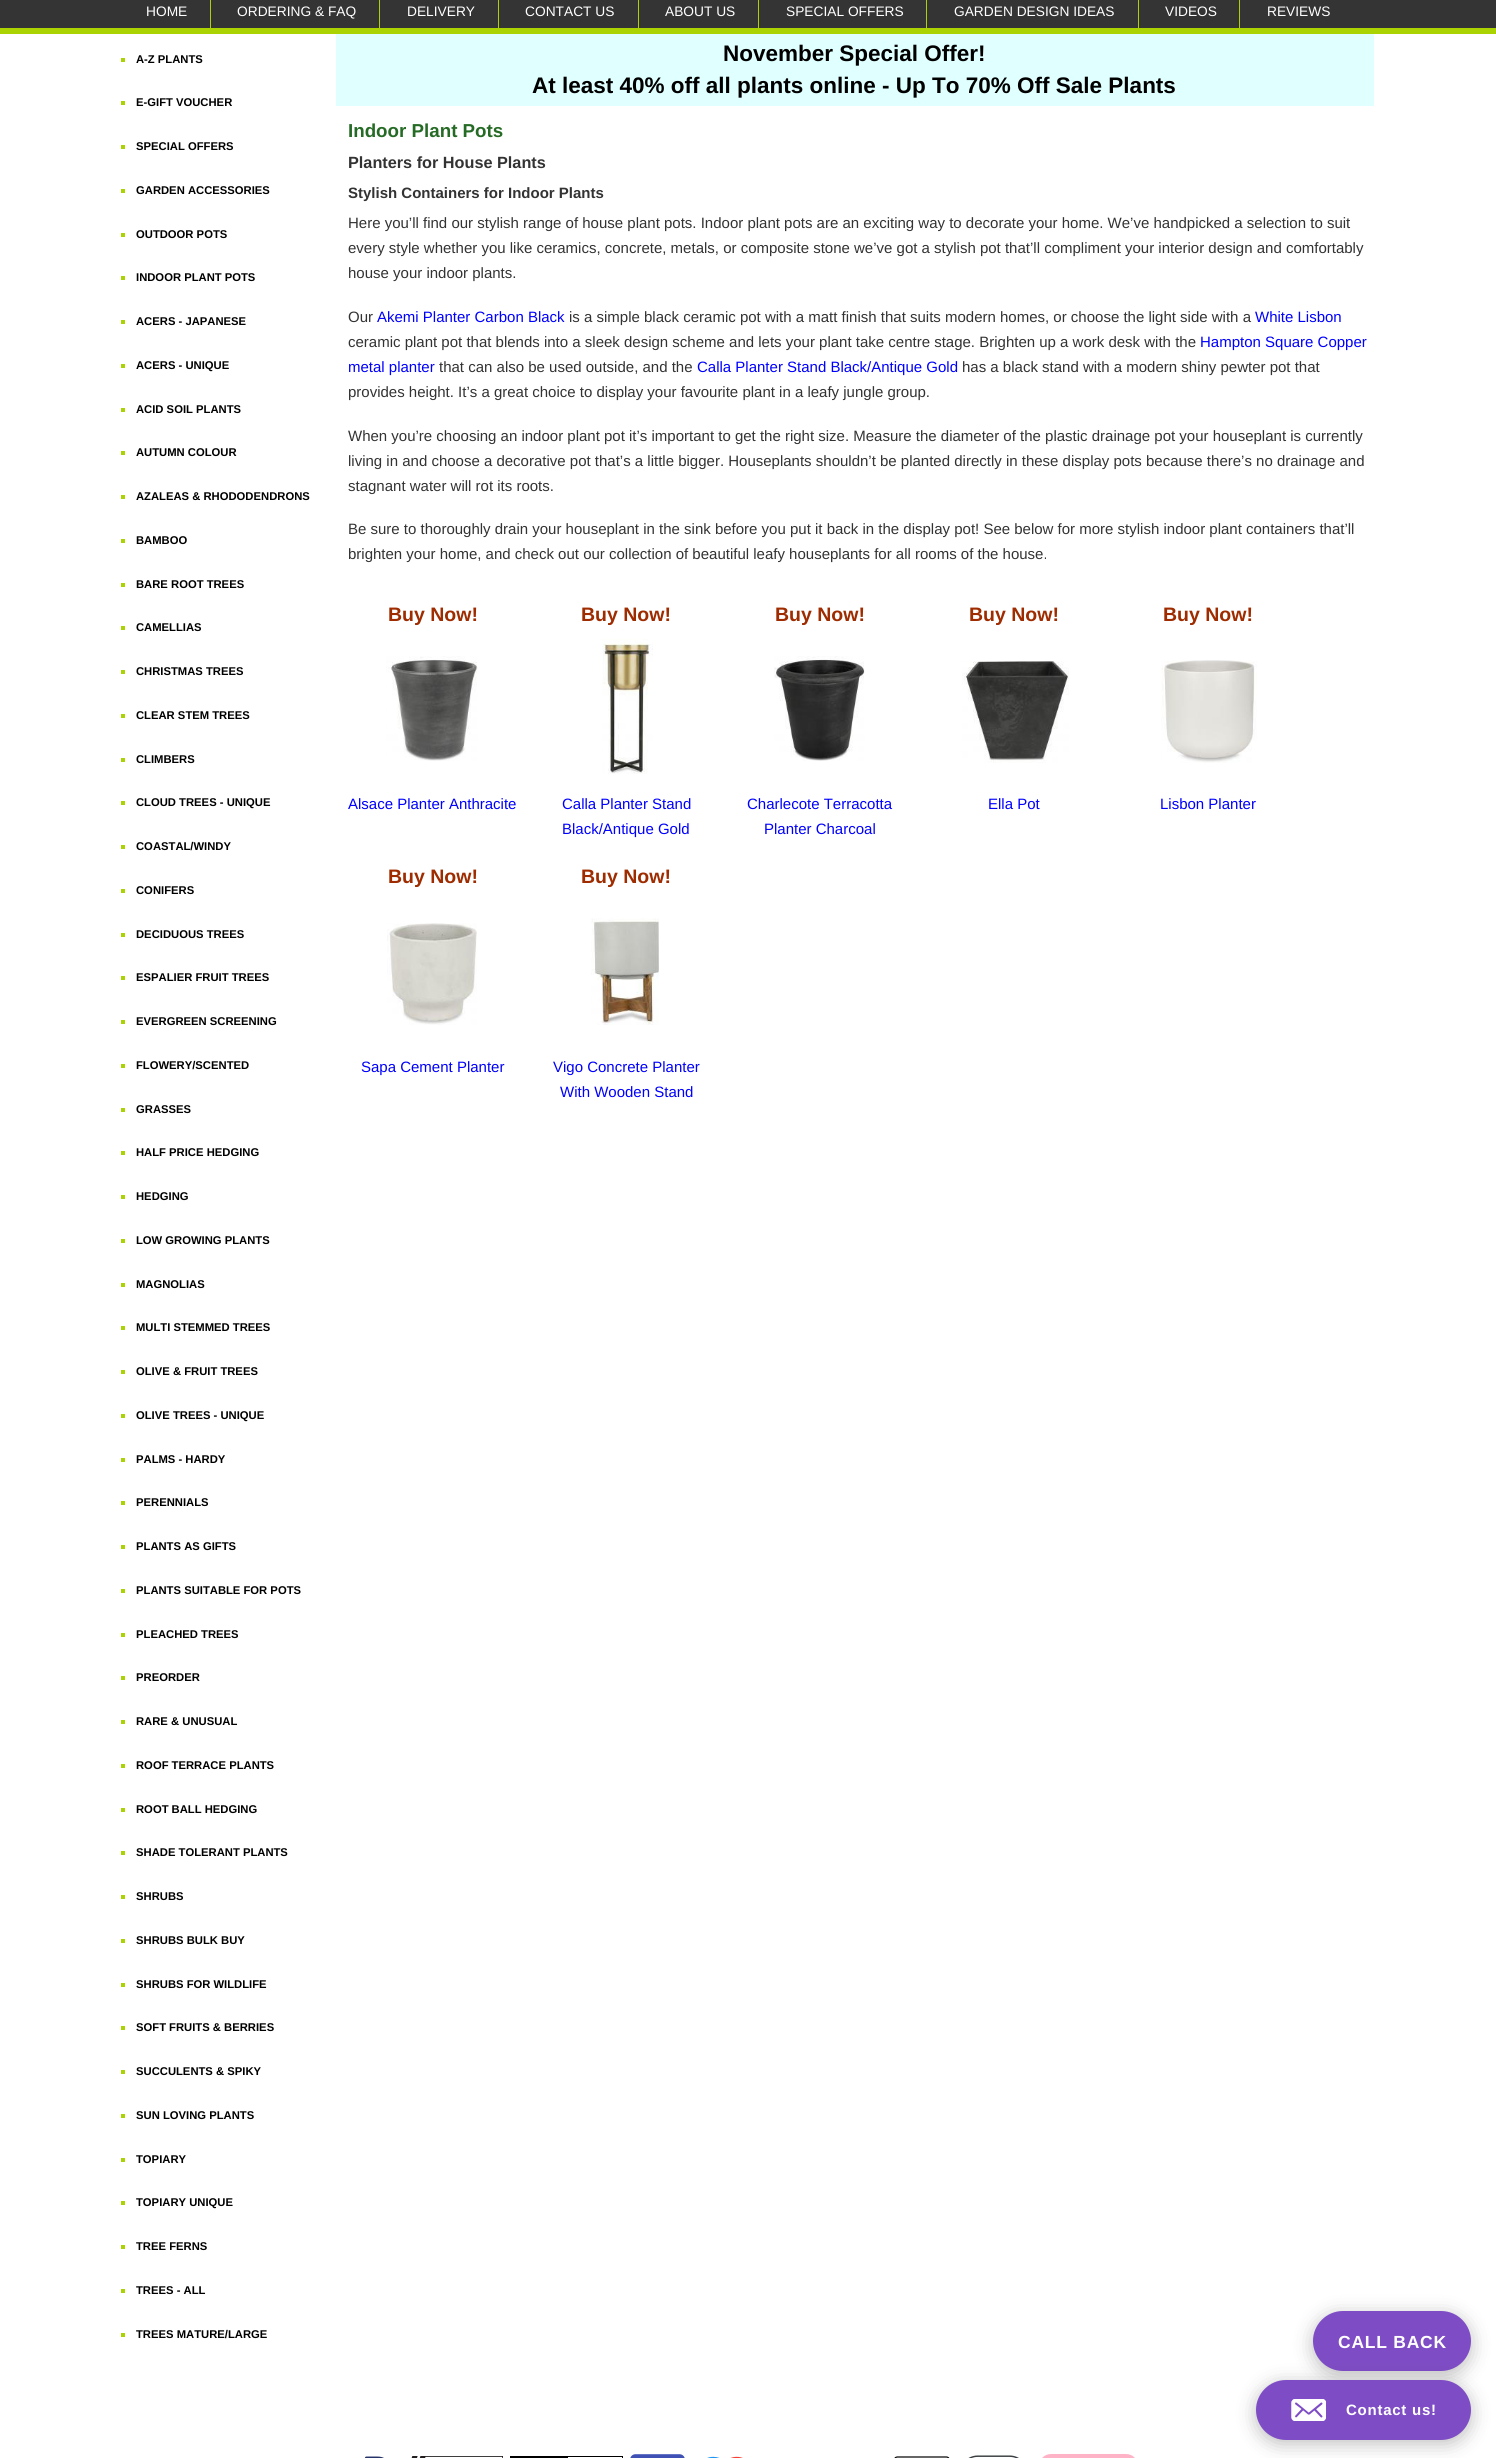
import math
import cairo

surface = cairo.ImageSurface(cairo.Format.RGB24, 1496, 2458)
ctx = cairo.Context(surface)
options = cairo.FontOptions()
options.set_hint_metrics(cairo.HintMetrics.OFF)
options.set_hint_style(cairo.HintStyle.NONE)
ctx.set_font_options(options)
ctx.set_miter_limit(4)


def ink(r, g, b):
    ctx.set_source_rgb(r / 255, g / 255, b / 255)


def write(x, y, s, family, size, color, bold=False, italic=False):
    ctx.select_font_face(family, cairo.FontSlant.ITALIC if italic else cairo.FontSlant.NORMAL, cairo.FontWeight.BOLD if bold else cairo.FontWeight.NORMAL)
    ctx.set_font_size(size)
    ink(*color)
    ctx.move_to(x, y)
    ctx.show_text(s)


def write_spaced(x, y, s, letter, word):
    ctx.move_to(x, y)
    for ch in s:
        ctx.show_text(ch)
        ctx.rel_move_to(letter + word * (ch == ' '), 0)


def block(x, y, w, h, *color):
    ink(*color)
    ctx.rectangle(x, y, w, h)
    ctx.fill()


def round_path(x, y, w, h, r):
    ctx.new_sub_path()
    for i, (u, v) in enumerate([(x + w - r, y + h - r), (x + r, y + h - r), (x + r, y + r), (x + w - r, y + r)]):
        ctx.arc(u, v, r, i * math.pi / 2, (i + 1) * math.pi / 2)
    ctx.close_path()


def blur_box(x, y, w, h, r, blur, alpha):
    ctx.push_group_with_content(cairo.Content.ALPHA)
    ctx.set_operator(cairo.Operator.SOURCE)
    for i in range(15, -16, -2):
        e = blur * i / 6
        if min(w, h) + 2 * e > 0:
            ctx.set_source_rgba(0, 0, 0, alpha * math.erfc((i - 1) / 8.5) / 2)
            round_path(x - e, y - e, w + 2 * e, h + 2 * e, max(0, min(r + e + blur * .6, min(w, h) / 2 + e)))
            ctx.fill()
    ctx.mask(ctx.pop_group())


def paste(path, x, y, w, h):
    ctx.save()
    ctx.set_source_surface(cairo.ImageSurface.create_from_png(path), x, y)
    ctx.rectangle(x, y, w, h)
    ctx.fill()
    ctx.restore()


s1 = dict(family="Liberation Sans", size=13.75, color=(255, 255, 255))
s2 = dict(family="Liberation Sans", size=11.25, color=(0, 0, 0), bold=True)
s3 = dict(family="Liberation Sans", size=22.5, color=(0, 0, 0), bold=True)
s4 = dict(family="Liberation Sans", size=18.75, color=(37, 107, 37), bold=True)
s5 = dict(family="Liberation Sans", size=16.25, color=(51, 51, 51), bold=True)
s6 = dict(family="Liberation Sans", size=15, color=(51, 51, 51), bold=True)
s7 = dict(family="Liberation Sans", size=15, color=(51, 51, 51))
s8 = dict(family="Liberation Sans", size=15, color=(0, 0, 255))
s9 = dict(family="Liberation Sans", size=19.5, color=(158, 44, 0), bold=True)

ink(255, 255, 255)
ctx.paint()
block(0, 0, 1496, 28, 52, 52, 52)
block(0, 28, 1496, 6, 171, 211, 3)
block(210, 0, 1, 28, 171, 211, 3)
write(146, 16, "HOME", **s1)
block(379, 0, 1, 28, 171, 211, 3)
write(237, 16, "ORDERING & FAQ", **s1)
block(498, 0, 1, 28, 171, 211, 3)
write(407, 16, "DELIVERY", **s1)
block(638, 0, 1, 28, 171, 211, 3)
write(525, 16, "CONTACT US", **s1)
block(758, 0, 1, 28, 171, 211, 3)
write(665, 16, "ABOUT US", **s1)
block(926, 0, 1, 28, 171, 211, 3)
write(786, 16, "SPECIAL OFFERS", **s1)
block(1138, 0, 1, 28, 171, 211, 3)
write(954, 16, "GARDEN DESIGN IDEAS", **s1)
block(1239, 0, 1, 28, 171, 211, 3)
write(1165, 16, "VIDEOS", **s1)
write(1267, 16, "REVIEWS", **s1)
block(121, 58, 4, 4, 171, 211, 3)
write(136, 63, "A-Z PLANTS", **s2)
block(121, 101, 4, 4, 171, 211, 3)
write(136, 106, "E-GIFT VOUCHER", **s2)
block(121, 145, 4, 4, 171, 211, 3)
write(136, 150, "SPECIAL OFFERS", **s2)
block(121, 189, 4, 4, 171, 211, 3)
write(136, 194, "GARDEN ACCESSORIES", **s2)
block(121, 233, 4, 4, 171, 211, 3)
write(136, 238, "OUTDOOR POTS", **s2)
block(121, 276, 4, 4, 171, 211, 3)
write(136, 281, "INDOOR PLANT POTS", **s2)
block(121, 320, 4, 4, 171, 211, 3)
write(136, 325, "ACERS - JAPANESE", **s2)
block(121, 364, 4, 4, 171, 211, 3)
write(136, 369, "ACERS - UNIQUE", **s2)
block(121, 408, 4, 4, 171, 211, 3)
write(136, 413, "ACID SOIL PLANTS", **s2)
block(121, 451, 4, 4, 171, 211, 3)
write(136, 456, "AUTUMN COLOUR", **s2)
block(121, 495, 4, 4, 171, 211, 3)
write(136, 500, "AZALEAS & RHODODENDRONS", **s2)
block(121, 539, 4, 4, 171, 211, 3)
write(136, 544, "BAMBOO", **s2)
block(121, 583, 4, 4, 171, 211, 3)
write(136, 588, "BARE ROOT TREES", **s2)
block(121, 626, 4, 4, 171, 211, 3)
write(136, 631, "CAMELLIAS", **s2)
block(121, 670, 4, 4, 171, 211, 3)
write(136, 675, "CHRISTMAS TREES", **s2)
block(121, 714, 4, 4, 171, 211, 3)
write(136, 719, "CLEAR STEM TREES", **s2)
block(121, 758, 4, 4, 171, 211, 3)
write(136, 763, "CLIMBERS", **s2)
block(121, 801, 4, 4, 171, 211, 3)
write(136, 806, "CLOUD TREES - UNIQUE", **s2)
block(121, 845, 4, 4, 171, 211, 3)
write(136, 850, "COASTAL/WINDY", **s2)
block(121, 889, 4, 4, 171, 211, 3)
write(136, 894, "CONIFERS", **s2)
block(121, 933, 4, 4, 171, 211, 3)
write(136, 938, "DECIDUOUS TREES", **s2)
block(121, 976, 4, 4, 171, 211, 3)
write(136, 981, "ESPALIER FRUIT TREES", **s2)
block(121, 1020, 4, 4, 171, 211, 3)
write(136, 1025, "EVERGREEN SCREENING", **s2)
block(121, 1064, 4, 4, 171, 211, 3)
write(136, 1069, "FLOWERY/SCENTED", **s2)
block(121, 1108, 4, 4, 171, 211, 3)
write(136, 1113, "GRASSES", **s2)
block(121, 1151, 4, 4, 171, 211, 3)
write(136, 1156, "HALF PRICE HEDGING", **s2)
block(121, 1195, 4, 4, 171, 211, 3)
write(136, 1200, "HEDGING", **s2)
block(121, 1239, 4, 4, 171, 211, 3)
write(136, 1244, "LOW GROWING PLANTS", **s2)
block(121, 1283, 4, 4, 171, 211, 3)
write(136, 1288, "MAGNOLIAS", **s2)
block(121, 1326, 4, 4, 171, 211, 3)
write(136, 1331, "MULTI STEMMED TREES", **s2)
block(121, 1370, 4, 4, 171, 211, 3)
write(136, 1375, "OLIVE & FRUIT TREES", **s2)
block(121, 1414, 4, 4, 171, 211, 3)
write(136, 1419, "OLIVE TREES - UNIQUE", **s2)
block(121, 1458, 4, 4, 171, 211, 3)
write(136, 1463, "PALMS - HARDY", **s2)
block(121, 1501, 4, 4, 171, 211, 3)
write(136, 1506, "PERENNIALS", **s2)
block(121, 1545, 4, 4, 171, 211, 3)
write(136, 1550, "PLANTS AS GIFTS", **s2)
block(121, 1589, 4, 4, 171, 211, 3)
write(136, 1594, "PLANTS SUITABLE FOR POTS", **s2)
block(121, 1633, 4, 4, 171, 211, 3)
write(136, 1638, "PLEACHED TREES", **s2)
block(121, 1676, 4, 4, 171, 211, 3)
write(136, 1681, "PREORDER", **s2)
block(121, 1720, 4, 4, 171, 211, 3)
write(136, 1725, "RARE & UNUSUAL", **s2)
block(121, 1764, 4, 4, 171, 211, 3)
write(136, 1769, "ROOF TERRACE PLANTS", **s2)
block(121, 1808, 4, 4, 171, 211, 3)
write(136, 1813, "ROOT BALL HEDGING", **s2)
block(121, 1851, 4, 4, 171, 211, 3)
write(136, 1856, "SHADE TOLERANT PLANTS", **s2)
block(121, 1895, 4, 4, 171, 211, 3)
write(136, 1900, "SHRUBS", **s2)
block(121, 1939, 4, 4, 171, 211, 3)
write(136, 1944, "SHRUBS BULK BUY", **s2)
block(121, 1983, 4, 4, 171, 211, 3)
write(136, 1988, "SHRUBS FOR WILDLIFE", **s2)
block(121, 2026, 4, 4, 171, 211, 3)
write(136, 2031, "SOFT FRUITS & BERRIES", **s2)
block(121, 2070, 4, 4, 171, 211, 3)
write(136, 2075, "SUCCULENTS & SPIKY", **s2)
block(121, 2114, 4, 4, 171, 211, 3)
write(136, 2119, "SUN LOVING PLANTS", **s2)
block(121, 2158, 4, 4, 171, 211, 3)
write(136, 2163, "TOPIARY", **s2)
block(121, 2201, 4, 4, 171, 211, 3)
write(136, 2206, "TOPIARY UNIQUE", **s2)
block(121, 2245, 4, 4, 171, 211, 3)
write(136, 2250, "TREE FERNS", **s2)
block(121, 2289, 4, 4, 171, 211, 3)
write(136, 2294, "TREES - ALL", **s2)
block(121, 2333, 4, 4, 171, 211, 3)
write(136, 2338, "TREES MATURE/LARGE", **s2)
block(336, 34, 1038, 72, 224, 255, 255)
write(723, 61, "November Special Offer!", **s3)
write(532, 93, "At least 40% off all plants online - Up To 70% Off Sale Plants", **s3)
write(348, 137, "Indoor Plant Pots", **s4)
write(348, 168, "Planters for House Plants", **s5)
write(348, 198, "Stylish Containers for Indoor Plants", **s6)
write(348, 228, "Here you’ll find our stylish range of house plant pots. Indoor plant pots are an exciting way to decorate your home. We’ve handpicked a selection to suit", **s7)
write(348, 253, "every style whether you like ceramics, concrete, metals, or composite stone we’ve got a stylish pot that’ll compliment your interior design and comfortably", **s7)
write(348, 278, "house your indoor plants.", **s7)
write(348, 322, "Our", **s7)
write(377, 322, "Akemi Planter Carbon Black", **s8)
write(569, 322, "is a simple black ceramic pot with a matt finish that suits modern homes, or choose the light side with a", **s7)
write(1255, 322, "White Lisbon", **s8)
write(348, 347, "ceramic plant pot that blends into a sleek design scheme and lets your plant take centre stage. Brighten up a work desk with the", **s7)
write(1200, 347, "Hampton Square Copper", **s8)
write(348, 372, "metal planter", **s8)
write(439, 372, "that can also be used outside, and the", **s7)
write(697, 372, "Calla Planter Stand Black/Antique Gold", **s8)
write(962, 372, "has a black stand with a modern shiny pewter pot that", **s7)
write(348, 397, "provides height. It’s a great choice to display your favourite plant in a leafy jungle group.", **s7)
write(348, 441, "When you’re choosing an indoor plant pot it’s important to get the right size. Measure the diameter of the plastic drainage pot your houseplant is currently", **s7)
write(348, 466, "living in and choose a decorative pot that’s a little bigger. Houseplants shouldn’t be planted directly in these display pots because there’s no drainage and", **s7)
write(348, 491, "stagnant water will rot its roots.", **s7)
write(348, 534, "Be sure to thoroughly drain your houseplant in the sink before you put it back in the display pot! See below for more stylish indoor plant containers that’ll", **s7)
write(348, 559, "brighten your home, and check out our collection of beautiful leafy houseplants for all rooms of the house.", **s7)
write(388, 621, "Buy Now!", **s9)
paste("pic1.png", 386, 656, 92, 105)
write(348, 809, "Alsace Planter Anthracite", **s8)
write(581, 621, "Buy Now!", **s9)
paste("pic2.png", 602, 639, 51, 135)
write(562, 809, "Calla Planter Stand", **s8)
write(562, 834, "Black/Antique Gold", **s8)
write(775, 621, "Buy Now!", **s9)
paste("pic3.png", 774, 656, 91, 105)
write(747, 809, "Charlecote Terracotta", **s8)
write(764, 834, "Planter Charcoal", **s8)
write(969, 621, "Buy Now!", **s9)
paste("pic4.png", 962, 661, 107, 102)
write(988, 809, "Ella Pot", **s8)
write(1163, 621, "Buy Now!", **s9)
paste("pic5.png", 1161, 660, 96, 103)
write(1160, 809, "Lisbon Planter", **s8)
write(388, 883, "Buy Now!", **s9)
paste("pic6.png", 387, 923, 90, 102)
write(361, 1072, "Sapa Cement Planter", **s8)
write(581, 883, "Buy Now!", **s9)
paste("pic7.png", 591, 918, 68, 107)
write(553, 1072, "Vigo Concrete Planter", **s8)
write(560, 1097, "With Wooden Stand", **s8)
ink(0, 0, 0)
blur_box(1313, 2315, 158, 60, 30, 9.5, 0.25)
ink(126, 77, 197)
round_path(1313, 2311, 158, 60, 30)
ctx.fill()
ctx.select_font_face("Liberation Sans", cairo.FontSlant.NORMAL, cairo.FontWeight.BOLD)
ctx.set_font_size(17.5)
ink(255, 255, 255)
write_spaced(1338, 2348, "CALL BACK", 0.75, 0)
ink(0, 0, 0)
blur_box(1256, 2384, 215, 60, 30, 9.5, 0.25)
ink(126, 77, 197)
round_path(1256, 2380, 215, 60, 30)
ctx.fill()
paste("pic8.png", 1291, 2399, 35, 22)
ctx.set_font_size(15)
ink(255, 255, 255)
write_spaced(1346, 2415, "Contact us!", 0.75, 0)
paste("pic9.png", 364, 2456, 20, 2)
paste("pic10.png", 411, 2456, 92, 2)
paste("pic11.png", 510, 2456, 113, 2)
paste("pic12.png", 630, 2454, 55, 4)
paste("pic13.png", 707, 2456, 36, 2)
paste("pic14.png", 894, 2456, 56, 2)
paste("pic15.png", 968, 2455, 51, 3)
paste("pic16.png", 1042, 2454, 93, 4)
surface.write_to_png("screenshot.png")
